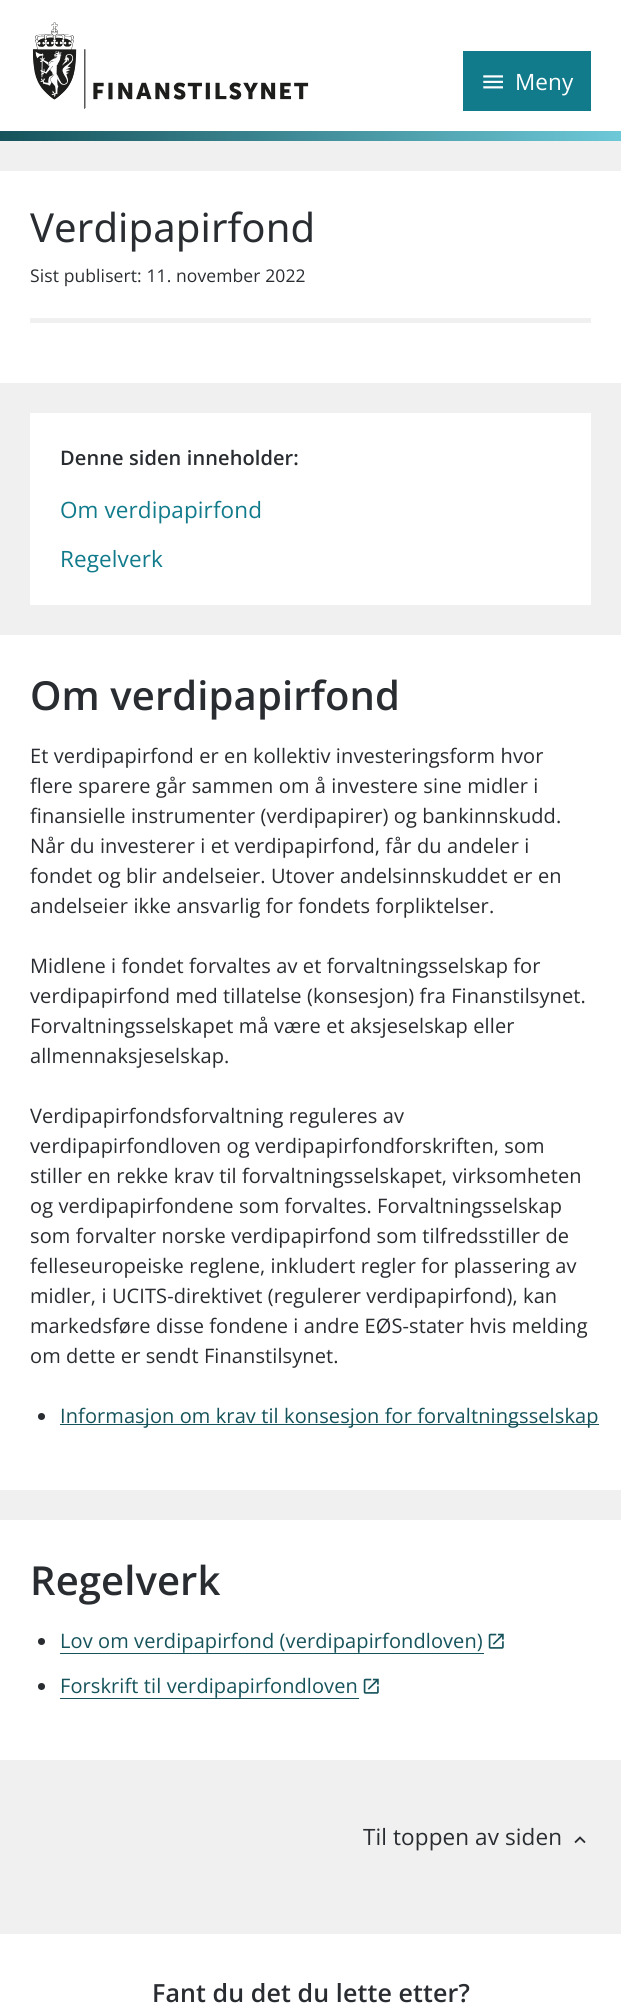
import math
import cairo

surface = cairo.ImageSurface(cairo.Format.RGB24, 621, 2006)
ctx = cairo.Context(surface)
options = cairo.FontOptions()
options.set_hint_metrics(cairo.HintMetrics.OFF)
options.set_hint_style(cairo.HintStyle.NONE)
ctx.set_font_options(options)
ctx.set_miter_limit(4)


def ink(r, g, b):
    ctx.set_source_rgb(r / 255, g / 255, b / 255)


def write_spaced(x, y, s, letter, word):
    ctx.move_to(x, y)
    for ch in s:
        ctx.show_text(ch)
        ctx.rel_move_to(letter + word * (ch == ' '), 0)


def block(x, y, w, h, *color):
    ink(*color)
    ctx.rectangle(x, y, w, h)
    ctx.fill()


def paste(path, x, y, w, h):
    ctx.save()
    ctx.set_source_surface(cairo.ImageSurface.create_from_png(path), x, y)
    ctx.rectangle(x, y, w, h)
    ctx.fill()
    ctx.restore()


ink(240, 240, 240)
ctx.paint()
block(0, 0, 621, 131, 255, 255, 255)
paste("pic1.png", 32, 22, 277, 87)
block(463, 51, 128, 60, 17, 123, 140)
paste("pic2.png", 483, 75, 20, 14)
ctx.select_font_face("Open Sans")
ctx.set_font_size(22.5)
ink(255, 255, 255)
write_spaced(515, 90, "Meny", 0.1, 0)
gradient = cairo.LinearGradient(0, 136, 621, 136)
gradient.add_color_stop_rgba(0, 0.086, 0.325, 0.357, 1)
gradient.add_color_stop_rgba(1, 0.427, 0.784, 0.843, 1)
ctx.set_source(gradient)
ctx.rectangle(0, 131, 621, 10)
ctx.fill()
block(0, 171, 621, 212, 255, 255, 255)
ctx.select_font_face("Noto Sans")
ctx.set_font_size(40)
ink(41, 44, 48)
write_spaced(30, 242, "Verdipapirfond", 0.1, 0)
ctx.select_font_face("Open Sans")
ctx.set_font_size(17.5)
write_spaced(30, 282, "Sist publisert: 11. november 2022", 0.1, 0)
block(30, 318, 561, 5, 240, 240, 240)
block(30, 413, 561, 192, 255, 255, 255)
ctx.select_font_face("Open Sans SemiBold")
ctx.set_font_size(20)
ink(41, 44, 48)
write_spaced(60, 465, "Denne siden inneholder:", 0.1, 0)
ctx.select_font_face("Open Sans")
ctx.set_font_size(22.5)
ink(17, 123, 140)
write_spaced(60, 518, "Om verdipapirfond", 0.1, 0)
write_spaced(60, 567, "Regelverk", 0.1, 0)
block(0, 635, 621, 855, 255, 255, 255)
ctx.select_font_face("Open Sans SemiBold")
ctx.set_font_size(40)
ink(41, 44, 48)
write_spaced(30, 710, "Om verdipapirfond", 0.1, 0)
ctx.select_font_face("Open Sans")
ctx.set_font_size(20)
write_spaced(30, 763, "Et verdipapirfond er en kollektiv investeringsform hvor", 0.1, 0)
write_spaced(30, 793, "flere sparere går sammen om å investere sine midler i", 0.1, 0)
write_spaced(30, 823, "finansielle instrumenter (verdipapirer) og bankinnskudd.", 0.1, 0)
write_spaced(30, 853, "Når du investerer i et verdipapirfond, får du andeler i", 0.1, 0)
write_spaced(30, 883, "fondet og blir andelseier. Utover andelsinnskuddet er en", 0.1, 0)
write_spaced(30, 913, "andelseier ikke ansvarlig for fondets forpliktelser.", 0.1, 0)
write_spaced(30, 973, "Midlene i fondet forvaltes av et forvaltningsselskap for", 0.1, 0)
write_spaced(30, 1003, "verdipapirfond med tillatelse (konsesjon) fra Finanstilsynet.", 0.1, 0)
write_spaced(30, 1033, "Forvaltningsselskapet må være et aksjeselskap eller", 0.1, 0)
write_spaced(30, 1063, "allmennaksjeselskap.", 0.1, 0)
write_spaced(30, 1123, "Verdipapirfondsforvaltning reguleres av", 0.1, 0)
write_spaced(30, 1153, "verdipapirfondloven og verdipapirfondforskriften, som", 0.1, 0)
write_spaced(30, 1183, "stiller en rekke krav til forvaltningsselskapet, virksomheten", 0.1, 0)
write_spaced(30, 1213, "og verdipapirfondene som forvaltes. Forvaltningsselskap", 0.1, 0)
write_spaced(30, 1243, "som forvalter norske verdipapirfond som tilfredsstiller de", 0.1, 0)
write_spaced(30, 1273, "felleseuropeiske reglene, inkludert regler for plassering av", 0.1, 0)
write_spaced(30, 1303, "midler, i UCITS-direktivet (regulerer verdipapirfond), kan", 0.1, 0)
write_spaced(30, 1333, "markedsføre disse fondene i andre EØS-stater hvis melding", 0.1, 0)
write_spaced(30, 1363, "om dette er sendt Finanstilsynet.", 0.1, 0)
ctx.new_path()
ctx.arc(41.5, 1416.5, 3.5, 0, 2 * math.pi)
ctx.fill()
block(60, 1424, 539, 1, 22, 83, 91)
write_spaced(60, 1423, "Informasjon om krav til konsesjon for forvaltningsselskap", 0.1, 0)
block(0, 1520, 621, 240, 255, 255, 255)
ctx.select_font_face("Open Sans SemiBold")
ctx.set_font_size(40)
ink(41, 44, 48)
write_spaced(30, 1595, "Regelverk", 0.1, 0)
ctx.new_path()
ctx.arc(41.5, 1641.5, 3.5, 0, 2 * math.pi)
ctx.fill()
ctx.select_font_face("Open Sans")
ctx.set_font_size(20)
ink(22, 83, 91)
write_spaced(60, 1648, "Lov om verdipapirfond (verdipapirfondloven)", 0.1, 0)
block(60, 1653, 424, 1, 22, 83, 91)
paste("pic3.png", 488, 1633, 16, 16)
ink(41, 44, 48)
ctx.arc(41.5, 1686.5, 3.5, 0, 2 * math.pi)
ctx.fill()
ink(22, 83, 91)
write_spaced(60, 1693, "Forskrift til verdipapirfondloven", 0.1, 0)
block(60, 1698, 299, 1, 22, 83, 91)
paste("pic3.png", 363, 1678, 16, 16)
ctx.set_font_size(22.5)
ink(41, 44, 48)
write_spaced(363, 1845, "Til toppen av siden", 0.1, 0)
paste("pic4.png", 574, 1836, 12, 8)
block(0, 1934, 621, 72, 255, 255, 255)
ctx.select_font_face("Open Sans SemiBold")
ctx.set_font_size(25)
ink(41, 44, 48)
write_spaced(152, 2002, "Fant du det du lette etter?", 0.1, 0)
surface.write_to_png("screenshot.png")
